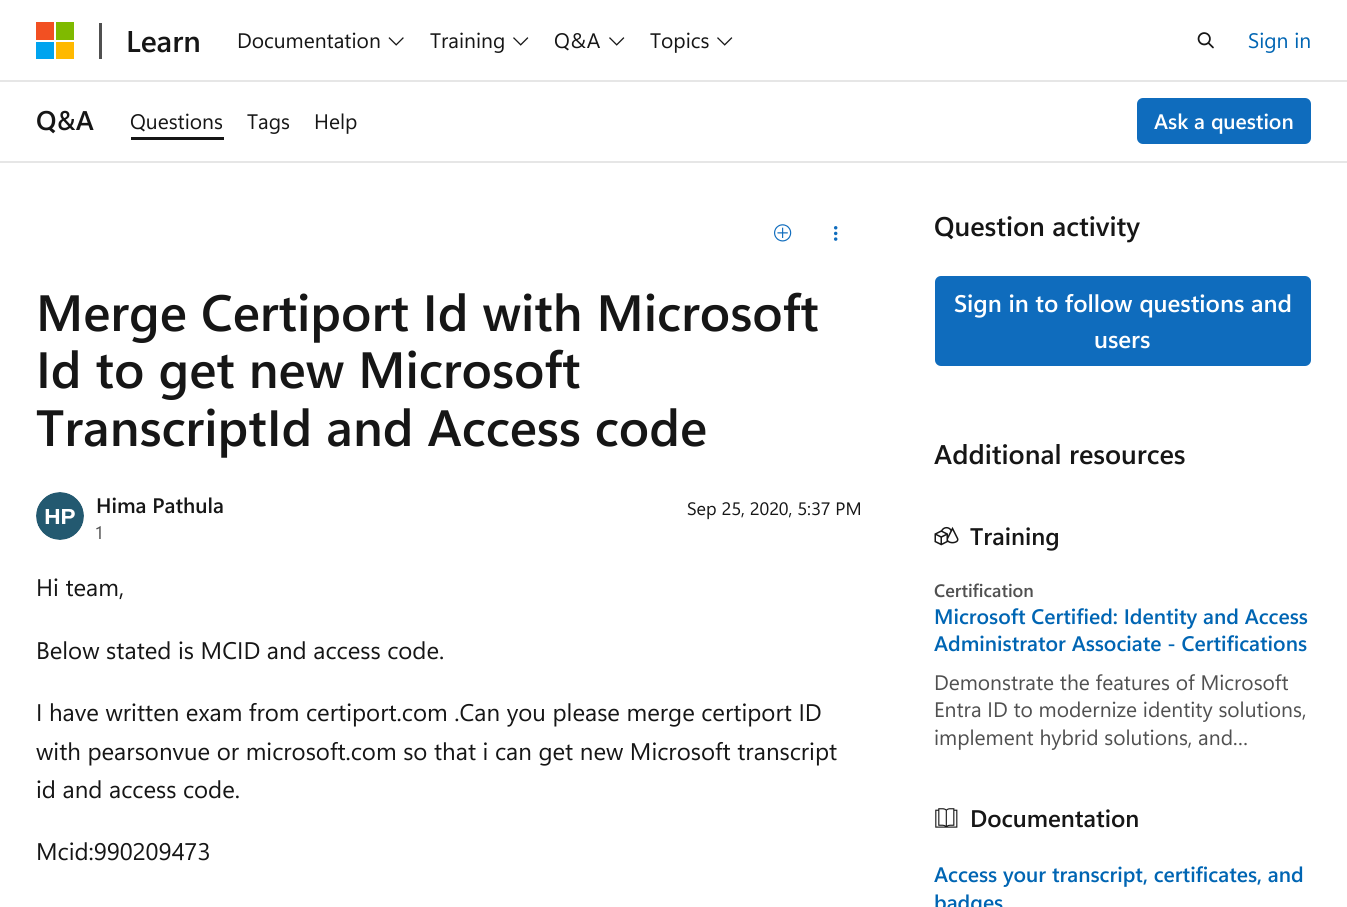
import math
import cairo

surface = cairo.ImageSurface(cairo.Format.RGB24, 1347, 907)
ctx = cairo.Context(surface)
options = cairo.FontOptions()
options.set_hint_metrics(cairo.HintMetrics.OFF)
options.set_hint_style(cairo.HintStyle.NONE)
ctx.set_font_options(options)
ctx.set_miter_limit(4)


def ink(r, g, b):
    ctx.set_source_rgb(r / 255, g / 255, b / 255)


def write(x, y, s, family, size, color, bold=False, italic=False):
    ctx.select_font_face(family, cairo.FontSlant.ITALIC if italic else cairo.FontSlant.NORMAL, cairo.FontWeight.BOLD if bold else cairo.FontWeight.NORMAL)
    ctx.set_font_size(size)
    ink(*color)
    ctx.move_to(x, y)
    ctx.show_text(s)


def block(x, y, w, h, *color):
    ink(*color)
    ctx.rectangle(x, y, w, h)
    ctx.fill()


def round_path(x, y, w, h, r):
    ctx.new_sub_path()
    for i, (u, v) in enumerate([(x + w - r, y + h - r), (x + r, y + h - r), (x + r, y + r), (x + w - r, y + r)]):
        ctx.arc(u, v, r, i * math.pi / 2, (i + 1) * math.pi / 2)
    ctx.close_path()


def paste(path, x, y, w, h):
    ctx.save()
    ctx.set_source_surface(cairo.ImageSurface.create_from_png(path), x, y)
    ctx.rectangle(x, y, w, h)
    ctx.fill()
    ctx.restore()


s1 = dict(family="Segoe UI SemiBold", size=30, color=(22, 22, 22))
s2 = dict(family="Segoe UI", size=21, color=(22, 22, 22))
s3 = dict(family="Segoe UI", size=21, color=(0, 101, 179))
s4 = dict(family="Segoe UI SemiBold", size=27, color=(22, 22, 22))
s5 = dict(family="Segoe UI SemiBold", size=21, color=(255, 255, 255))
s6 = dict(family="Segoe UI SemiBold", size=51, color=(22, 22, 22))
s7 = dict(family="Segoe UI SemiBold", size=21, color=(22, 22, 22))
s8 = dict(family="Segoe UI", size=18, color=(80, 80, 80))
s9 = dict(family="Segoe UI", size=18, color=(22, 22, 22))
s10 = dict(family="Segoe UI", size=24, color=(22, 22, 22))
s11 = dict(family="Segoe UI SemiBold", size=24, color=(255, 255, 255))
s12 = dict(family="Segoe UI SemiBold", size=24, color=(22, 22, 22))
s13 = dict(family="Segoe UI SemiBold", size=18, color=(80, 80, 80))
s14 = dict(family="Segoe UI SemiBold", size=21, color=(0, 101, 179))
s15 = dict(family="Segoe UI", size=21, color=(80, 80, 80))

ink(255, 255, 255)
ctx.paint()
block(0, 80, 1347, 2, 230, 230, 230)
block(36, 22, 18, 18, 242, 80, 34)
block(56, 22, 18, 18, 127, 186, 0)
block(36, 42, 18, 17, 0, 164, 239)
block(56, 42, 18, 17, 255, 185, 0)
block(99, 23, 3, 36, 80, 80, 80)
write(126, 52, "Learn", **s1)
write(237, 48, "Documentation", **s2)
paste("pic1.png", 388, 37, 16, 9)
write(430, 48, "Training", **s2)
paste("pic2.png", 513, 37, 16, 9)
write(554, 48, "Q&A", **s2)
paste("pic2.png", 609, 37, 16, 9)
write(650, 48, "Topics", **s2)
paste("pic2.png", 717, 37, 16, 9)
paste("pic3.png", 1197, 32, 17, 17)
write(1248, 48, "Sign in", **s3)
block(0, 161, 1347, 2, 230, 230, 230)
write(36, 130, "Q&A", **s4)
write(130, 129, "Questions", **s2)
block(131, 137, 93, 3, 22, 22, 22)
write(247, 129, "Tags", **s2)
write(314, 129, "Help", **s2)
ink(15, 108, 189)
round_path(1138, 99, 172, 44, 5)
ctx.fill_preserve()
ctx.stroke()
write(1154, 129, "Ask a question", **s5)
paste("pic4.png", 774, 224, 18, 18)
paste("pic5.png", 833, 226, 5, 15)
write(36, 331, "Merge Certiport Id with Microsoft", **s6)
write(36, 388, "Id to get new Microsoft", **s6)
write(36, 446, "TranscriptId and Access code", **s6)
ink(242, 242, 242)
ctx.new_path()
ctx.arc(60, 516, 24, 0, 2 * math.pi)
ctx.fill()
paste("pic6.png", 36, 492, 48, 48)
write(96, 513, "Hima Pathula", **s7)
write(96, 539, "1", **s8)
write(687, 515, "Sep 25, 2020, 5:37 PM", **s9)
write(36, 596, "Hi team,", **s10)
write(36, 659, "Below stated is MCID and access code.", **s10)
write(36, 721, "I have written exam from certiport.com .Can you please merge certiport ID", **s10)
write(36, 760, "with pearsonvue or microsoft.com so that i can get new Microsoft transcript", **s10)
write(36, 798, "id and access code.", **s10)
write(36, 860, "Mcid:990209473", **s10)
write(934, 236, "Question activity", **s4)
ink(15, 108, 189)
round_path(936, 277, 374, 88, 5)
ctx.fill_preserve()
ctx.stroke()
write(954, 312, "Sign in to follow questions and", **s11)
write(1094, 348, "users", **s11)
write(934, 464, "Additional resources", **s4)
paste("pic7.png", 934, 526, 25, 20)
write(970, 545, "Training", **s12)
write(934, 597, "Certification", **s13)
write(934, 624, "Microsoft Certified: Identity and Access", **s14)
write(934, 651, "Administrator Associate - Certifications", **s14)
write(934, 690, "Demonstrate the features of Microsoft", **s15)
write(934, 717, "Entra ID to modernize identity solutions,", **s15)
write(934, 745, "implement hybrid solutions, and…", **s15)
paste("pic8.png", 935, 808, 23, 20)
write(970, 827, "Documentation", **s12)
write(934, 882, "Access your transcript, certificates, and", **s14)
write(934, 910, "badges", **s14)
surface.write_to_png("screenshot.png")
